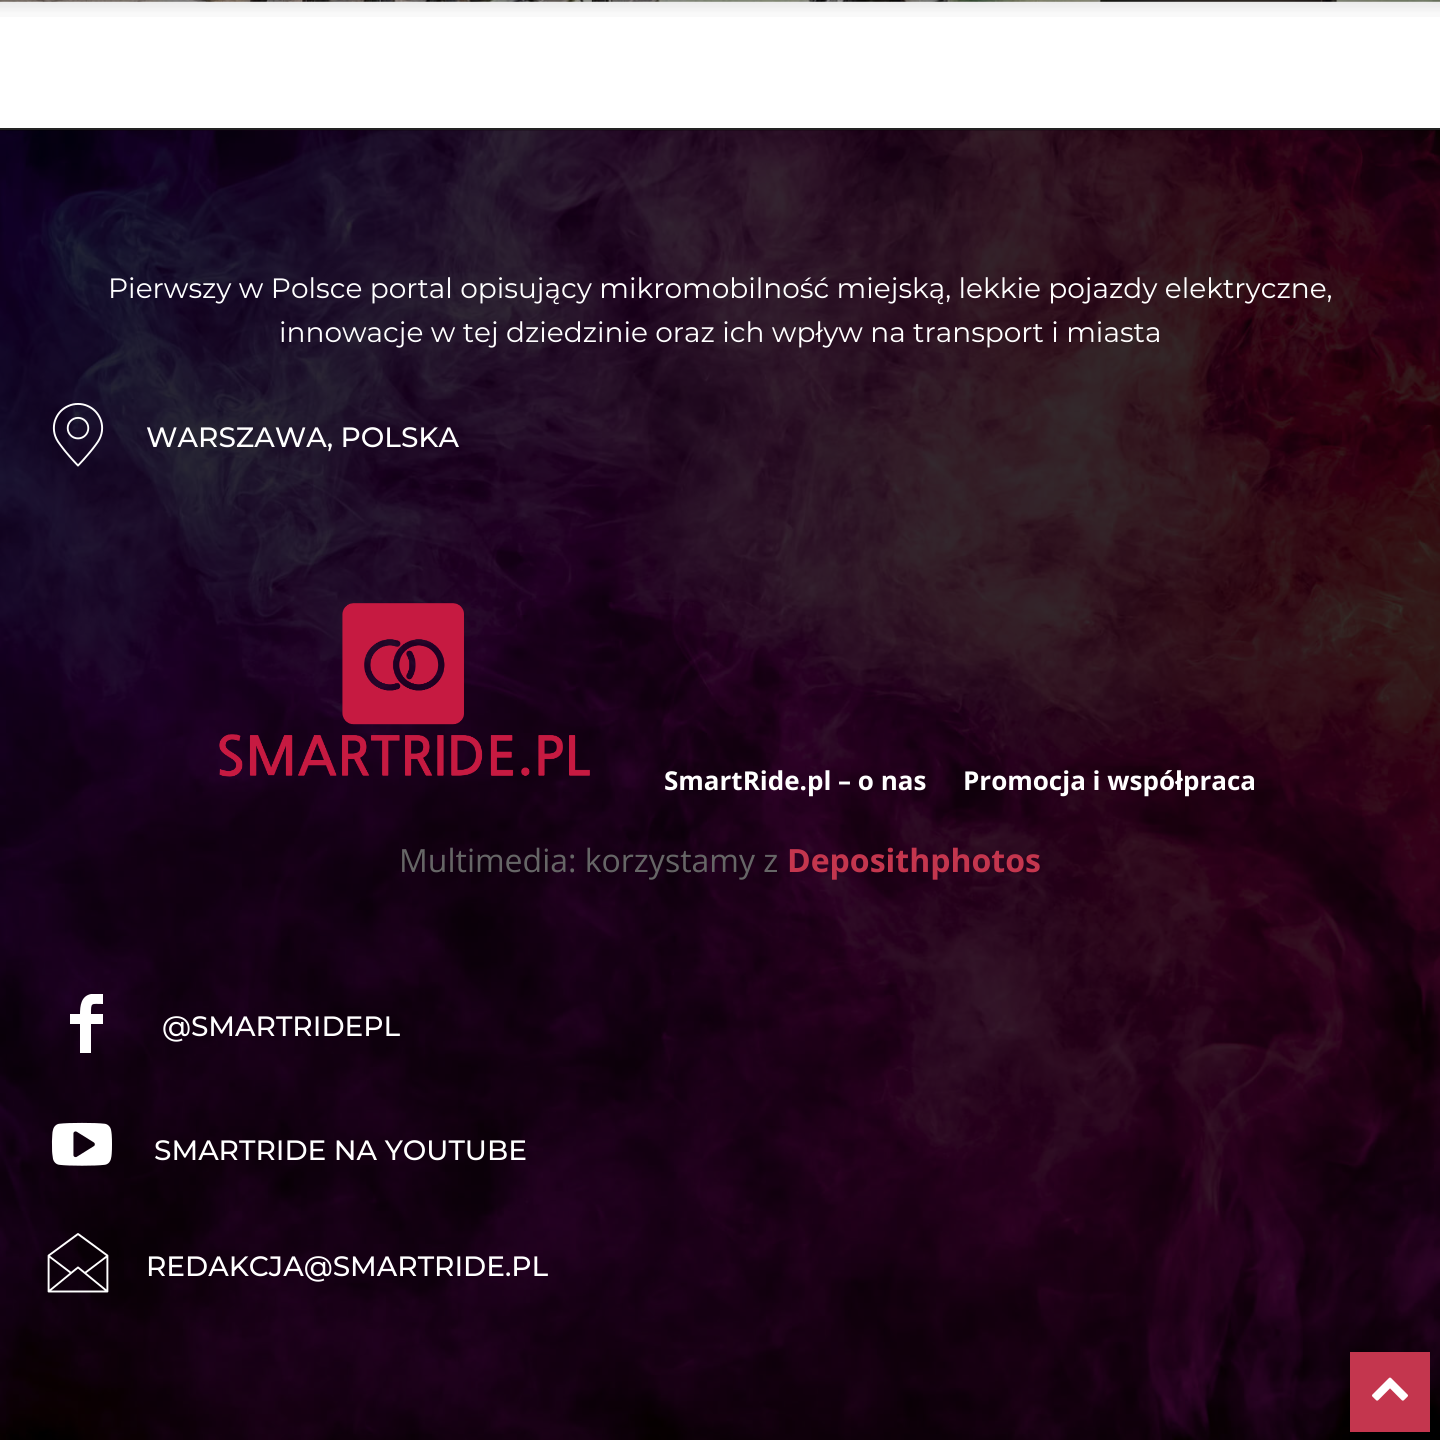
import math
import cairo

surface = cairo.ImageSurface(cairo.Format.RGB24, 1440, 1440)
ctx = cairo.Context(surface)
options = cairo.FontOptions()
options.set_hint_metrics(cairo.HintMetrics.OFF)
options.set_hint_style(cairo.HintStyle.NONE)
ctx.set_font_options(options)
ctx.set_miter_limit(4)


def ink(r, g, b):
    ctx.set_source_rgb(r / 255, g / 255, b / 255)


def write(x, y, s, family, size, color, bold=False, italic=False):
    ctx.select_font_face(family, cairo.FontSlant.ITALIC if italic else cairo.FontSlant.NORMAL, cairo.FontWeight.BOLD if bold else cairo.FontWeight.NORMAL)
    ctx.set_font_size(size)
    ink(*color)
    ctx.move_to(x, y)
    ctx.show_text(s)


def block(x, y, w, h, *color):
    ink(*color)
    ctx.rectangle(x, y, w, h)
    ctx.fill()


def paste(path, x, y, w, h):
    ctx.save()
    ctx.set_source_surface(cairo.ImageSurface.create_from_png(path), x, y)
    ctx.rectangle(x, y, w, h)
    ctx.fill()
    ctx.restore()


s1 = dict(family="Montserrat", size=28, color=(255, 255, 255))
s2 = dict(family="Montserrat Medium", size=28, color=(255, 255, 255))
s3 = dict(family="Open Sans", size=26, color=(255, 255, 255), bold=True)
s4 = dict(family="Open Sans", size=32, color=(102, 102, 102))
s5 = dict(family="Open Sans", size=32, color=(196, 54, 78), bold=True)

ink(255, 255, 255)
ctx.paint()
paste("pic1.png", 0, 0, 1440, 2)
paste("pic2.png", 0, 0, 1440, 17)
paste("pic3.png", 0, 130, 1440, 1310)
block(0, 128, 1440, 2, 34, 34, 34)
write(108, 298, "Pierwszy w Polsce portal opisujący mikromobilność miejską, lekkie pojazdy elektryczne,", **s1)
write(279, 342, "innowacje w tej dziedzinie oraz ich wpływ na transport i miasta", **s1)
paste("pic4.png", 52, 403, 52, 64)
write(146, 447, "WARSZAWA, POLSKA", **s2)
paste("pic5.png", 219, 603, 371, 174)
write(664, 790, "SmartRide.pl – o nas", **s3)
write(963, 790, "Promocja i współpraca", **s3)
write(399, 872, "Multimedia: korzystamy z", **s4)
write(787, 872, "Deposithphotos", **s5)
ink(255, 255, 255)
ctx.new_path()
ctx.move_to(103, 1004)
ctx.curve_to(91, 1004, 91, 1002, 91, 1014)
ctx.line_to(103, 1014)
ctx.line_to(103, 1024)
ctx.line_to(91, 1024)
ctx.line_to(91, 1053)
ctx.line_to(80, 1053)
ctx.line_to(80, 1024)
ctx.line_to(70, 1024)
ctx.line_to(70, 1014)
ctx.line_to(80, 1014)
ctx.curve_to(80, 1006, 81, 996, 91, 994)
ctx.line_to(103, 994)
ctx.close_path()
ctx.fill()
write(162, 1036, "@SMARTRIDEPL", **s2)
paste("pic6.png", 51, 1122, 61, 44)
write(154, 1160, "SMARTRIDE NA YOUTUBE", **s2)
paste("pic7.png", 47, 1233, 62, 60)
write(146, 1276, "REDAKCJA@SMARTRIDE.PL", **s2)
block(1350, 1352, 80, 80, 196, 54, 78)
paste("pic8.png", 1372, 1377, 36, 24)
surface.write_to_png("screenshot.png")
